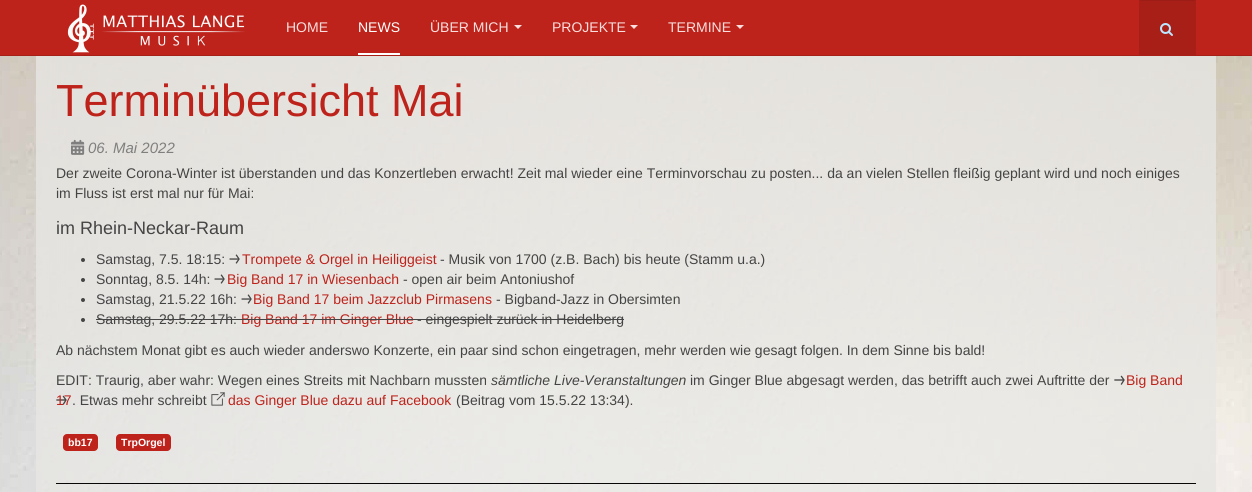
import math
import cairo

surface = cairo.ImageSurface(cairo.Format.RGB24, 1252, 492)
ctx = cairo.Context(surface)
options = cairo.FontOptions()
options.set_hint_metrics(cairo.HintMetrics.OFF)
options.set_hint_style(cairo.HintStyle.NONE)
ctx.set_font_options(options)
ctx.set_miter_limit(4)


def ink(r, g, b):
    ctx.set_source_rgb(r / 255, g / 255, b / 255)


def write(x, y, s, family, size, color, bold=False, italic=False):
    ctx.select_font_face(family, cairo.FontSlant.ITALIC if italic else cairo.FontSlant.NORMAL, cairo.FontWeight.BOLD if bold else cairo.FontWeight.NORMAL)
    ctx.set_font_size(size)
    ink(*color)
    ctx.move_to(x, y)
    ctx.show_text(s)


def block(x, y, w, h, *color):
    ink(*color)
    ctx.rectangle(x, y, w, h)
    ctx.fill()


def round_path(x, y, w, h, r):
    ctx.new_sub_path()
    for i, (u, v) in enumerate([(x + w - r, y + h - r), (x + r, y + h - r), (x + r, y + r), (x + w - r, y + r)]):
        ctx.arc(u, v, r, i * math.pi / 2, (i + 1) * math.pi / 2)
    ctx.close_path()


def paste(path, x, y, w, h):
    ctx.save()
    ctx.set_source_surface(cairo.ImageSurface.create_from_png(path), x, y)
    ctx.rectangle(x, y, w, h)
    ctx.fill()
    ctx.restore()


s1 = dict(family="Liberation Sans", size=14, color=(250, 223, 222))
s2 = dict(family="Liberation Sans", size=14, color=(255, 255, 255))
s3 = dict(family="Liberation Sans", size=45, color=(190, 35, 27))
s4 = dict(family="Liberation Sans", size=15, color=(127, 127, 127), italic=True)
s5 = dict(family="Liberation Sans", size=14, color=(68, 68, 68))
s6 = dict(family="Liberation Sans", size=18, color=(68, 68, 68))
s7 = dict(family="Liberation Sans", size=14, color=(190, 35, 27))
s8 = dict(family="Liberation Sans", size=14, color=(68, 68, 68), italic=True)
s9 = dict(family="Liberation Sans", size=10.5, color=(255, 255, 255), bold=True)

ink(255, 255, 255)
ctx.paint()
block(0, 0, 1252, 55, 190, 35, 27)
block(0, 55, 1252, 1, 168, 31, 24)
paste("pic1.png", 56, 3, 200, 50)
block(1139, 0, 57, 55, 168, 31, 24)
block(1140, 0, 55, 1, 155, 29, 22)
paste("pic2.png", 1160, 23, 13, 13)
write(286, 32, "HOME", **s1)
block(358, 53, 42, 2, 255, 255, 255)
write(358, 32, "NEWS", **s2)
write(430, 32, "ÜBER MICH", **s1)
ctx.new_path()
ctx.move_to(514, 25)
ctx.line_to(522, 25)
ctx.line_to(518, 29)
ctx.close_path()
ctx.fill()
write(552, 32, "PROJEKTE", **s1)
ctx.new_path()
ctx.move_to(630, 25)
ctx.line_to(638, 25)
ctx.line_to(634, 29)
ctx.close_path()
ctx.fill()
write(668, 32, "TERMINE", **s1)
ctx.new_path()
ctx.move_to(736, 25)
ctx.line_to(744, 25)
ctx.line_to(740, 29)
ctx.close_path()
ctx.fill()
paste("pic3.png", 0, 56, 1252, 436)
write(56, 116, "Terminübersicht Mai", **s3)
paste("pic4.png", 71, 139, 14, 16)
write(88, 153, "06. Mai 2022", **s4)
write(56, 178, "Der zweite Corona-Winter ist überstanden und das Konzertleben erwacht! Zeit mal wieder eine Terminvorschau zu posten... da an vielen Stellen fleißig geplant wird und noch einiges", **s5)
write(56, 198, "im Fluss ist erst mal nur für Mai:", **s5)
write(56, 234, "im Rhein-Neckar-Raum", **s6)
ctx.new_path()
ctx.arc(83, 260, 2, 0, 2 * math.pi)
ctx.fill()
write(96, 264, "Samstag, 7.5. 18:15:", **s5)
paste("pic5.png", 229, 254, 11, 10)
write(242, 264, "Trompete & Orgel in Heiliggeist", **s7)
write(440, 264, "- Musik von 1700 (z.B. Bach) bis heute (Stamm u.a.)", **s5)
ctx.new_path()
ctx.arc(83, 280, 2, 0, 2 * math.pi)
ctx.fill()
write(96, 284, "Sonntag, 8.5. 14h:", **s5)
paste("pic6.png", 214, 274, 11, 10)
write(227, 284, "Big Band 17 in Wiesenbach", **s7)
write(403, 284, "- open air beim Antoniushof", **s5)
ctx.new_path()
ctx.arc(83, 300, 2, 0, 2 * math.pi)
ctx.fill()
write(96, 304, "Samstag, 21.5.22 16h:", **s5)
paste("pic7.png", 241, 294, 11, 10)
write(253, 304, "Big Band 17 beim Jazzclub Pirmasens", **s7)
write(496, 304, "- Bigband-Jazz in Obersimten", **s5)
ctx.new_path()
ctx.arc(83, 320, 2, 0, 2 * math.pi)
ctx.fill()
write(96, 324, "Samstag, 29.5.22 17h:", **s5)
block(96, 319, 145, 1, 68, 68, 68)
write(241, 324, "Big Band 17 im Ginger Blue", **s7)
block(241, 319, 173, 1, 68, 68, 68)
write(417, 324, "- eingespielt zurück in Heidelberg", **s5)
block(414, 319, 210, 1, 68, 68, 68)
write(56, 355, "Ab nächstem Monat gibt es auch wieder anderswo Konzerte, ein paar sind schon eingetragen, mehr werden wie gesagt folgen. In dem Sinne bis bald!", **s5)
write(56, 385, "EDIT: Traurig, aber wahr: Wegen eines Streits mit Nachbarn mussten", **s5)
write(491, 385, "sämtliche Live-Veranstaltungen", **s8)
write(690, 385, "im Ginger Blue abgesagt werden, das betrifft auch zwei Auftritte der", **s5)
write(1126, 385, "Big Band", **s7)
ctx.new_path()
ctx.move_to(1121.5, 376.5)
ctx.line_to(1124, 380)
ctx.line_to(1121.5, 384)
ctx.move_to(1115, 380)
ctx.line_to(1123.5, 380)
ink(68, 68, 68)
ctx.set_line_width(1.3)
ctx.set_line_cap(cairo.LineCap.SQUARE)
ctx.stroke()
ctx.new_path()
ctx.move_to(63.5, 396.5)
ctx.line_to(66, 400)
ctx.line_to(63.5, 404)
ctx.move_to(57, 400)
ctx.line_to(65.5, 400)
ctx.stroke()
write(56, 405, "17", **s7)
write(72, 405, ". Etwas mehr schreibt", **s5)
paste("pic8.png", 211, 392, 14, 14)
write(228, 405, "das Ginger Blue dazu auf Facebook", **s7)
write(456, 405, "(Beitrag vom 15.5.22 13:34).", **s5)
ink(190, 35, 27)
round_path(63, 434, 35, 17, 4)
ctx.fill()
write(68, 446, "bb17", **s9)
ink(190, 35, 27)
round_path(116, 434, 55, 17, 4)
ctx.fill()
write(121, 446, "TrpOrgel", **s9)
block(56, 483, 1140, 1, 7, 7, 7)
surface.write_to_png("screenshot.png")
